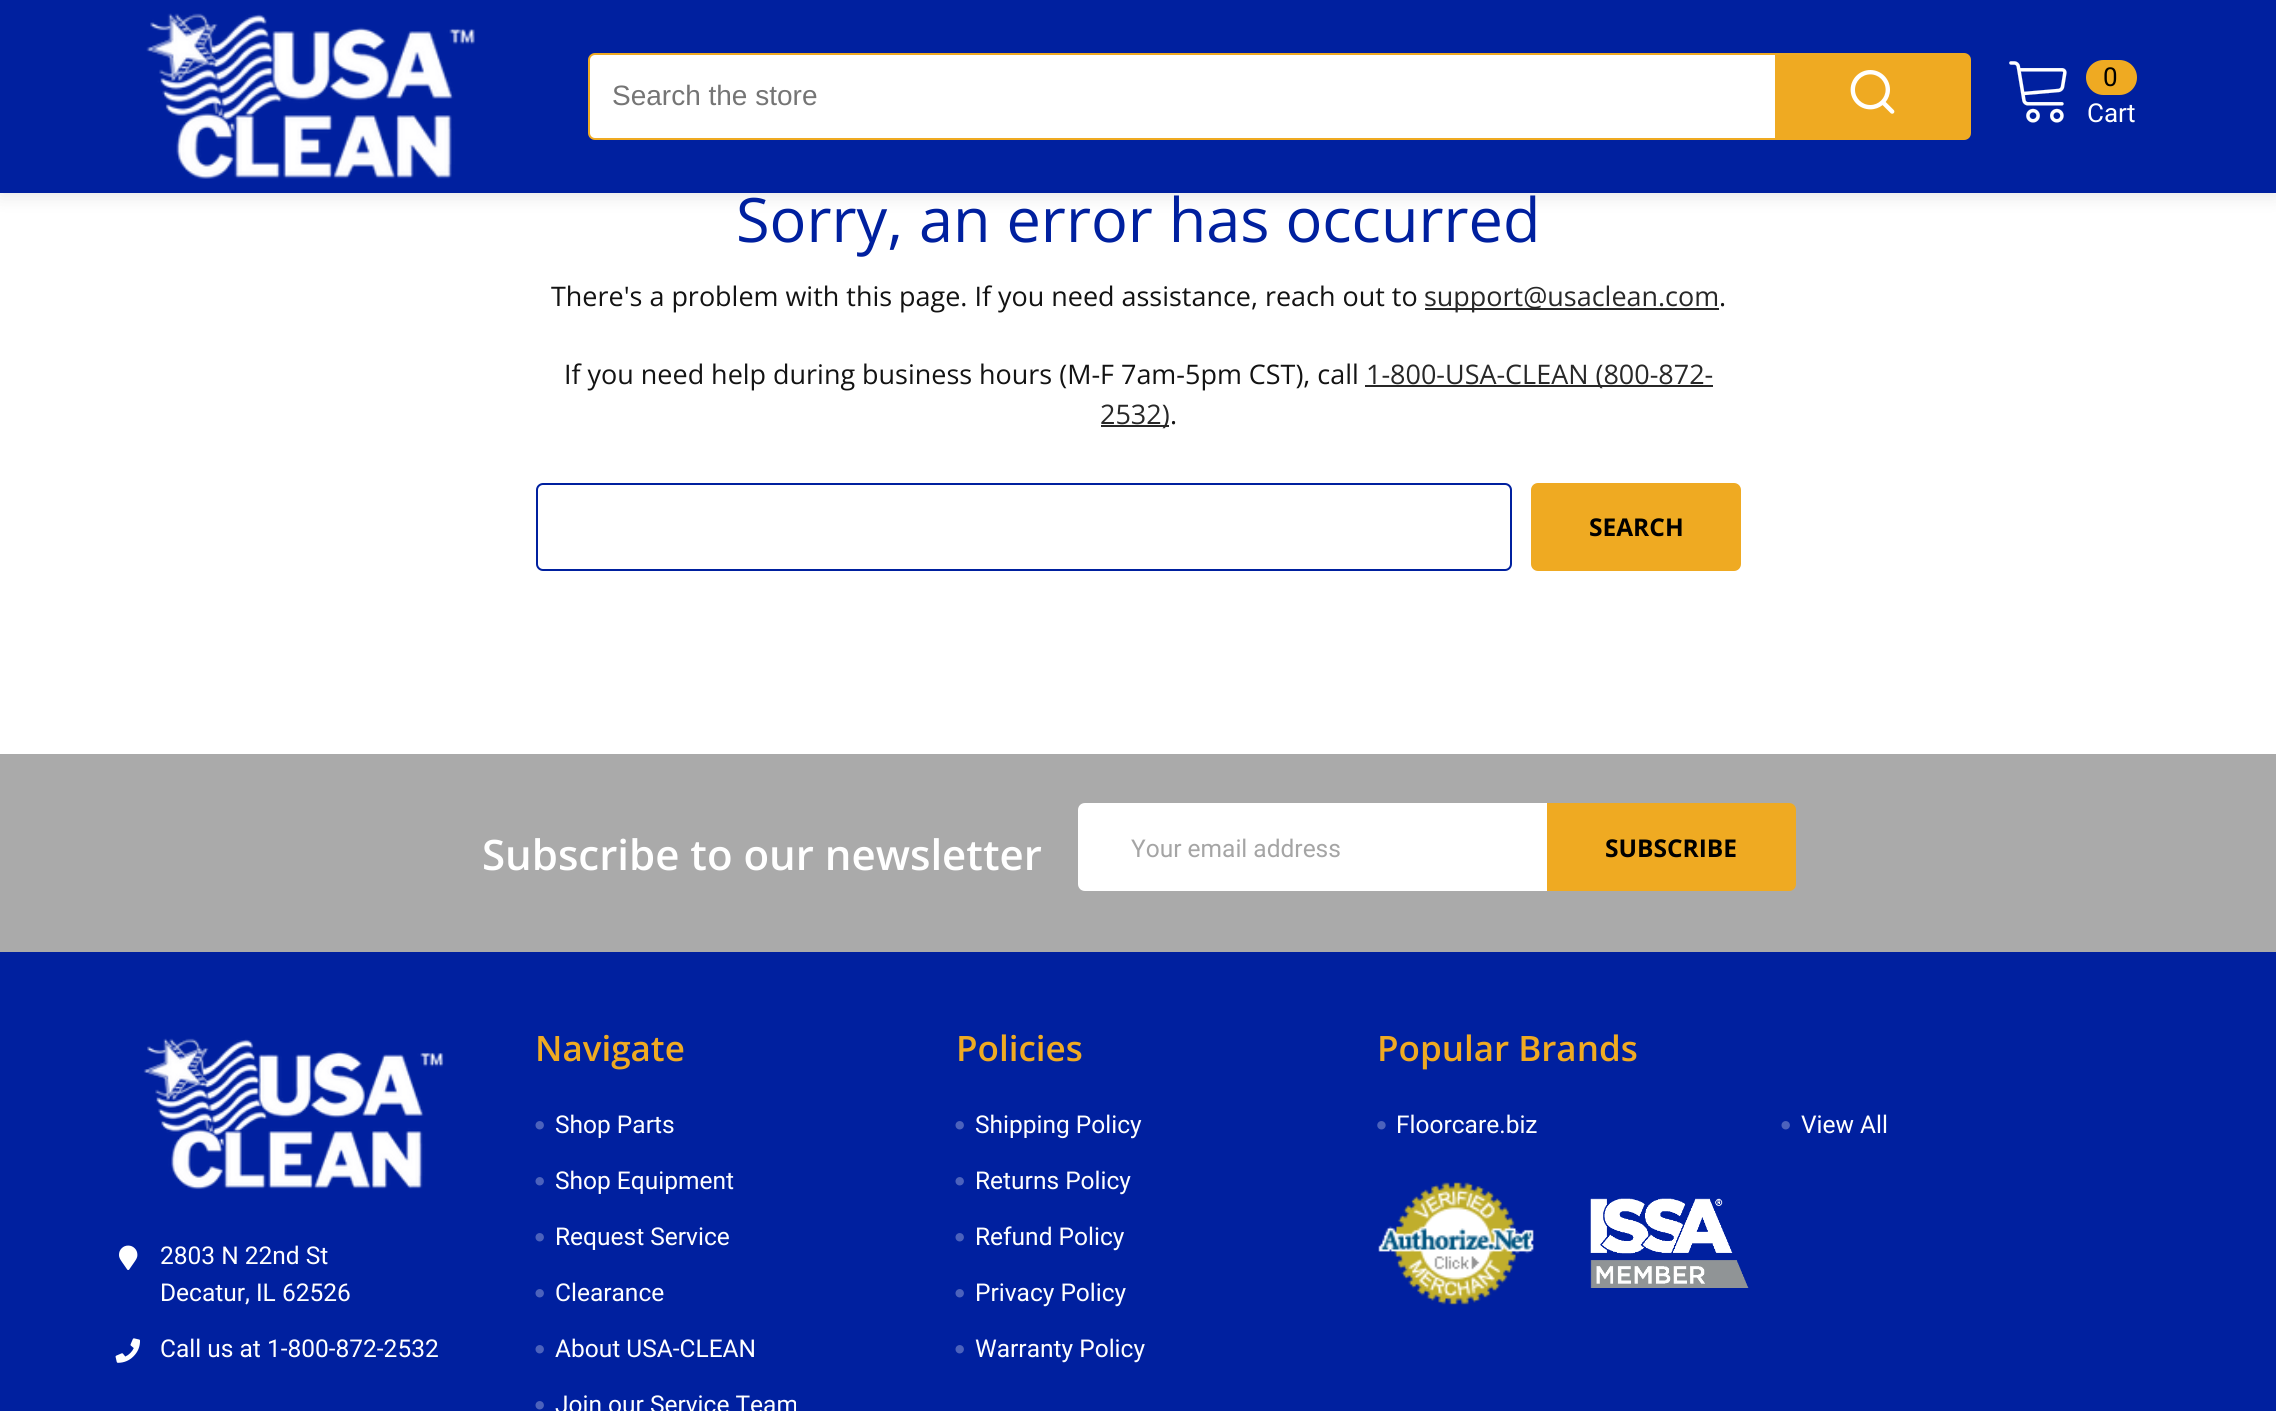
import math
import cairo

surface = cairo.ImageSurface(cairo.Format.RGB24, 2276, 1411)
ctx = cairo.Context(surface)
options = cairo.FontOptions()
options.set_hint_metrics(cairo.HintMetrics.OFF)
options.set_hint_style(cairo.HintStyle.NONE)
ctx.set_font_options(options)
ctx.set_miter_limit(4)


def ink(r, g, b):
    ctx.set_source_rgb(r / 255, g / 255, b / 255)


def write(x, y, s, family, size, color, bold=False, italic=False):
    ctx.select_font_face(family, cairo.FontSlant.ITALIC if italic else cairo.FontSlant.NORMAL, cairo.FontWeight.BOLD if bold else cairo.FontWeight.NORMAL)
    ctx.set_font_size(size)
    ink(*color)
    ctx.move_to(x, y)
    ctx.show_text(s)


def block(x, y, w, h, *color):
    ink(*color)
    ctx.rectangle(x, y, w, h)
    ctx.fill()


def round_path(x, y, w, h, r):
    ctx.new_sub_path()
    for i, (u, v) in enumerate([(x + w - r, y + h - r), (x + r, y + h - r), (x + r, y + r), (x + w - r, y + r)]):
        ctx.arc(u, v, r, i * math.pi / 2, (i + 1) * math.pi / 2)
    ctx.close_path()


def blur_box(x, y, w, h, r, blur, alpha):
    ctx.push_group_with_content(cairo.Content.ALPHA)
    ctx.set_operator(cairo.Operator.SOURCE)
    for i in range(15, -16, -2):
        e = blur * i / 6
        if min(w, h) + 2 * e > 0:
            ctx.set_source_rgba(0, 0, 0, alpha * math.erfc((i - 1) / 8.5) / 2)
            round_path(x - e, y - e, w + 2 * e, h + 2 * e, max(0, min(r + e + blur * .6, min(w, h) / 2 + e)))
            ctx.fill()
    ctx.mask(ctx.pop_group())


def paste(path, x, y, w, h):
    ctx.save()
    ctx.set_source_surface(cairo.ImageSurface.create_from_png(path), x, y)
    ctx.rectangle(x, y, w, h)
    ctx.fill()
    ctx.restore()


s1 = dict(family="Liberation Sans", size=28, color=(117, 117, 117))
s2 = dict(family="Roboto", size=26, color=(0, 0, 0))
s3 = dict(family="Roboto", size=26, color=(255, 255, 255))
s4 = dict(family="Open Sans", size=61.25, color=(0, 32, 159))
s5 = dict(family="Open Sans", size=26.95, color=(19, 19, 19))
s6 = dict(family="Open Sans", size=26.95, color=(40, 40, 40))
s7 = dict(family="Open Sans", size=24.5, color=(0, 0, 0), bold=True)
s8 = dict(family="Open Sans SemiBold", size=42, color=(255, 255, 255))
s9 = dict(family="Roboto", size=24.5, color=(165, 165, 165))
s10 = dict(family="Open Sans SemiBold", size=35, color=(239, 170, 34))
s11 = dict(family="Roboto", size=24.5, color=(255, 255, 255))

ink(255, 255, 255)
ctx.paint()
ink(0, 0, 0)
blur_box(0, 4, 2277, 192, 0, 9, 0.1)
block(0, 0, 2276, 193, 0, 32, 159)
paste("pic1.png", 146, 13, 329, 166)
ink(255, 255, 255)
round_path(589, 54, 1206, 85, 6)
ctx.fill_preserve()
ink(239, 170, 34)
ctx.stroke()
write(612, 105, "Search the store", **s1)
ink(239, 170, 34)
ctx.new_path()
ctx.move_to(1775, 53)
ctx.line_to(1964, 53)
ctx.curve_to(1968, 53, 1971, 56, 1971, 60)
ctx.line_to(1971, 133)
ctx.curve_to(1971, 137, 1968, 140, 1964, 140)
ctx.line_to(1775, 140)
ctx.close_path()
ctx.fill()
paste("pic2.png", 1850, 70, 45, 44)
paste("pic3.png", 2009, 61, 58, 62)
round_path(2086, 60, 51, 35, 17.5)
ctx.fill()
write(2103, 86, "0", **s2)
write(2087, 122, "Cart", **s3)
write(736, 242, "Sorry, an error has occurred", **s4)
write(551, 306, "There's a problem with this page. If you need assistance, reach out to", **s5)
block(1425, 308, 294, 2, 40, 40, 40)
write(1424, 306, "support@usaclean.com", **s6)
write(1719, 306, ".", **s5)
write(564, 384, "If you need help during business hours (M-F 7am-5pm CST), call", **s5)
block(1365, 385, 348, 2, 40, 40, 40)
write(1366, 384, "1-800-USA-CLEAN (800-872-", **s6)
block(1101, 425, 68, 2, 40, 40, 40)
write(1100, 424, "2532)", **s6)
write(1170, 424, ".", **s5)
round_path(537, 484, 974, 86, 6)
ink(0, 32, 159)
ctx.stroke()
ink(239, 170, 34)
round_path(1532, 484, 208, 86, 6)
ctx.fill_preserve()
ctx.stroke()
write(1589, 536, "SEARCH", **s7)
block(0, 952, 2276, 459, 0, 32, 159)
block(0, 754, 2276, 198, 170, 170, 170)
write(482, 870, "Subscribe to our newsletter", **s8)
ctx.new_path()
ctx.move_to(1085, 803)
ctx.line_to(1547, 803)
ctx.line_to(1547, 891)
ctx.line_to(1085, 891)
ctx.curve_to(1081, 891, 1078, 888, 1078, 884)
ctx.line_to(1078, 810)
ctx.curve_to(1078, 806, 1081, 803, 1085, 803)
ctx.close_path()
ctx.fill()
write(1131, 857, "Your email address", **s9)
ink(239, 170, 34)
ctx.new_path()
ctx.move_to(1548, 804)
ctx.line_to(1789, 804)
ctx.curve_to(1792.5, 804, 1795, 806.5, 1795, 810)
ctx.line_to(1795, 884)
ctx.curve_to(1795, 887.5, 1792.5, 890, 1789, 890)
ctx.line_to(1548, 890)
ctx.close_path()
ctx.fill_preserve()
ctx.stroke()
write(1605, 857, "SUBSCRIBE", **s7)
write(535, 1061, "Navigate", **s10)
paste("pic4.png", 535, 1121, 9, 9)
write(555, 1133, "Shop Parts", **s11)
paste("pic4.png", 535, 1177, 9, 9)
write(555, 1189, "Shop Equipment", **s11)
paste("pic4.png", 535, 1233, 9, 9)
write(555, 1245, "Request Service", **s11)
paste("pic4.png", 535, 1289, 9, 9)
write(555, 1301, "Clearance", **s11)
paste("pic4.png", 535, 1345, 9, 9)
write(555, 1357, "About USA-CLEAN", **s11)
paste("pic4.png", 535, 1401, 9, 9)
write(555, 1413, "Join our Service Team", **s11)
write(956, 1061, "Policies", **s10)
paste("pic4.png", 955, 1121, 9, 9)
write(975, 1133, "Shipping Policy", **s11)
paste("pic4.png", 955, 1177, 9, 9)
write(975, 1189, "Returns Policy", **s11)
paste("pic4.png", 955, 1233, 9, 9)
write(975, 1245, "Refund Policy", **s11)
paste("pic4.png", 955, 1289, 9, 9)
write(975, 1301, "Privacy Policy", **s11)
paste("pic4.png", 955, 1345, 9, 9)
write(975, 1357, "Warranty Policy", **s11)
write(1377, 1061, "Popular Brands", **s10)
paste("pic5.png", 1377, 1121, 9, 9)
write(1396, 1133, "Floorcare.biz", **s11)
paste("pic4.png", 1781, 1121, 9, 9)
write(1801, 1133, "View All", **s11)
paste("pic6.png", 1378, 1182, 156, 123)
paste("pic7.png", 1590, 1198, 159, 90)
paste("pic8.png", 143, 1038, 301, 152)
paste("pic9.png", 119, 1245, 19, 25)
write(160, 1264, "2803 N 22nd St", **s11)
write(160, 1301, "Decatur, IL 62526", **s11)
paste("pic10.png", 115, 1338, 25, 25)
write(160, 1357, "Call us at 1-800-872-2532", **s11)
surface.write_to_png("screenshot.png")
